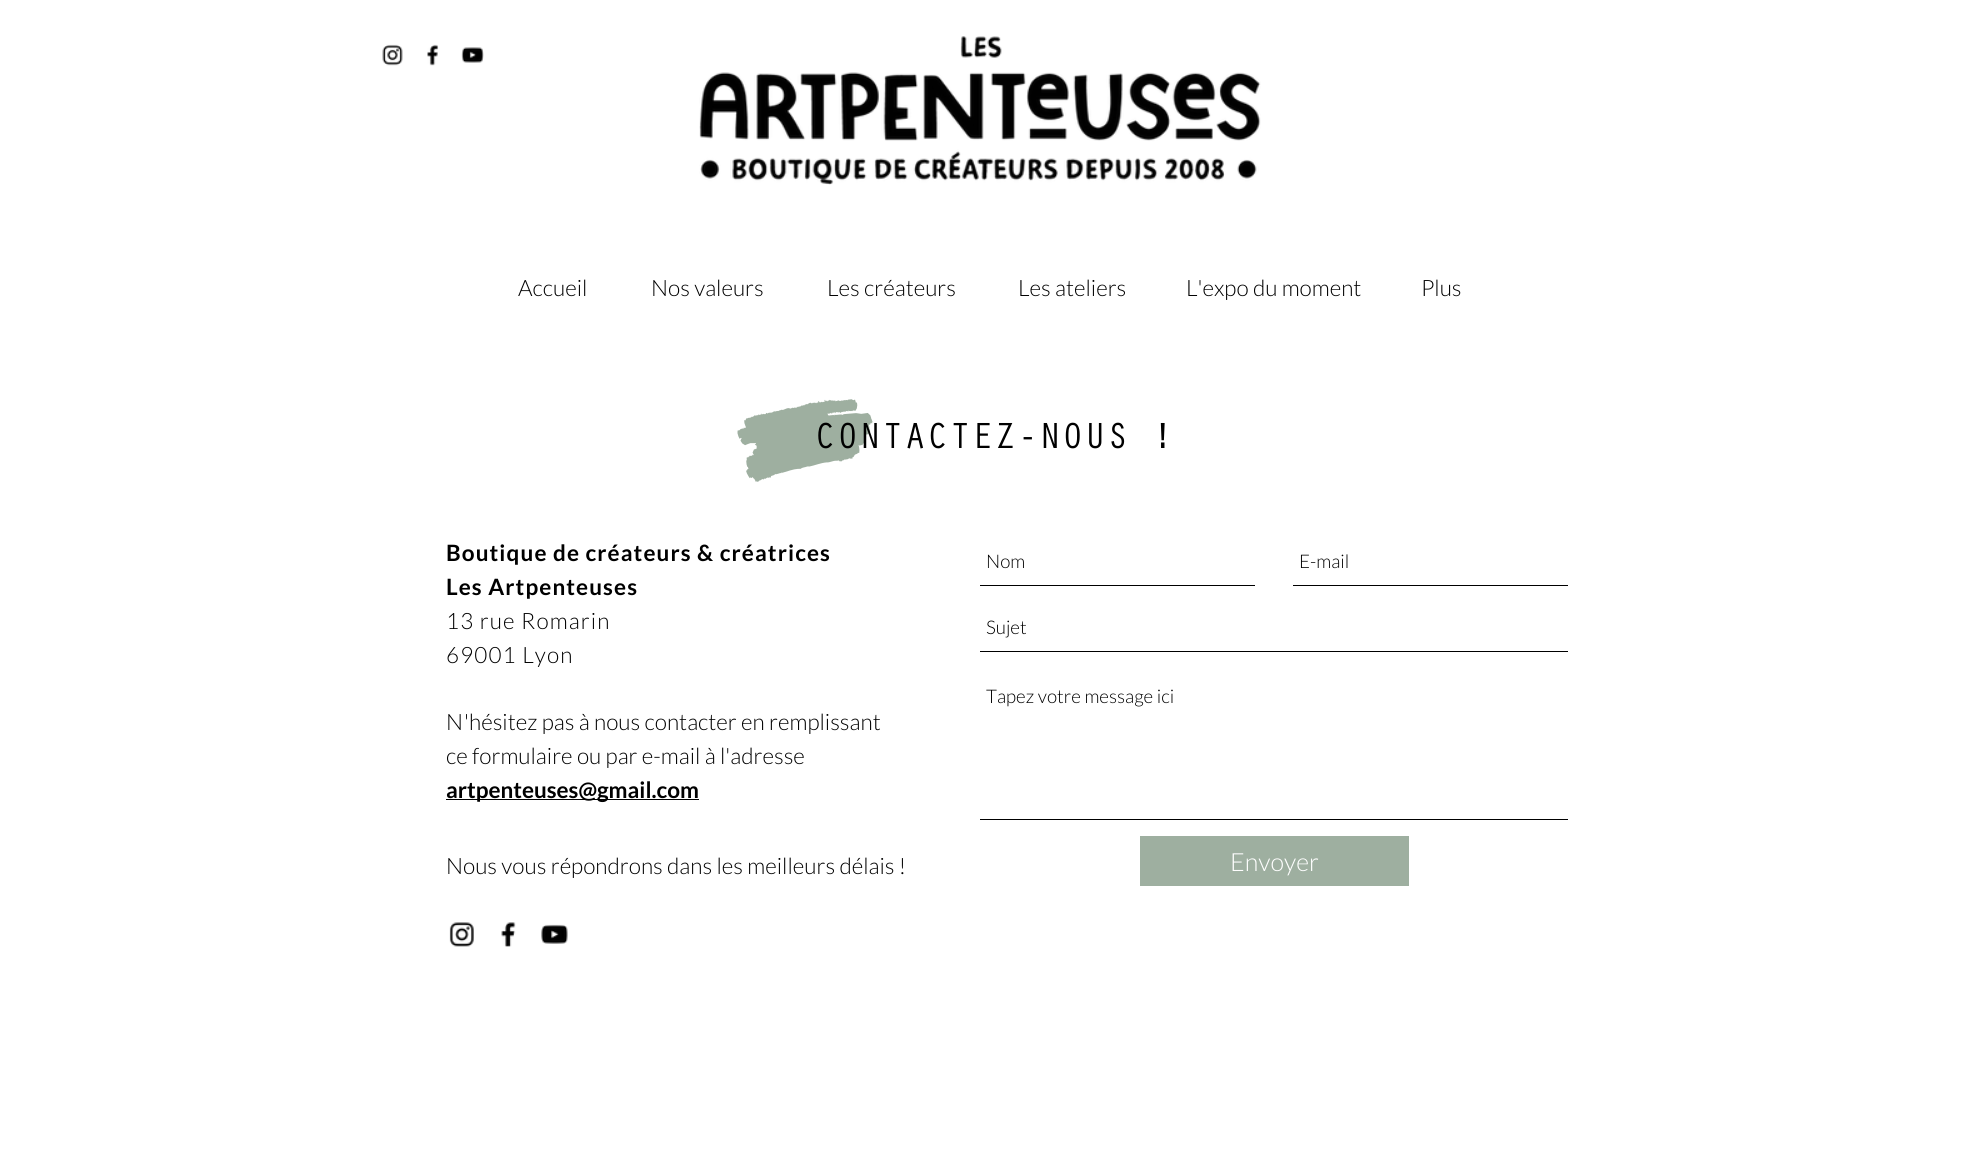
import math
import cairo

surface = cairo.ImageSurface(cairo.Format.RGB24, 1985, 1173)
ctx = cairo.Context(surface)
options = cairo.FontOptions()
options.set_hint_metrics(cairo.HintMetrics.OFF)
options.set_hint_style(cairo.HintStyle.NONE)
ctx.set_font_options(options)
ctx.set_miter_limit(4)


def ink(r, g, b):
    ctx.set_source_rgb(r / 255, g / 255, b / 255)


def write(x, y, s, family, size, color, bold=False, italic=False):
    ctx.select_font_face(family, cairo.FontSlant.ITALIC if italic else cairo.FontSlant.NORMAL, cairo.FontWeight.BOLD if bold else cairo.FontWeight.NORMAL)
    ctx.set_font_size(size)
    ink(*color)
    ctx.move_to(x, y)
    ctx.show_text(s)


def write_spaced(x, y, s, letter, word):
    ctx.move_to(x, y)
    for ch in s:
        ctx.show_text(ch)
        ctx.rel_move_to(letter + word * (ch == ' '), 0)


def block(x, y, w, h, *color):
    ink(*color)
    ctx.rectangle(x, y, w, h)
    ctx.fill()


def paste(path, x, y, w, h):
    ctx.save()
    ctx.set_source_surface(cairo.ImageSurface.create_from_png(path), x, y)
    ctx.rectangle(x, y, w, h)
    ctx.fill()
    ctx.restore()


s1 = dict(family="Lato Light", size=22.5, color=(0, 0, 0))
s2 = dict(family="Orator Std", size=37.5, color=(0, 0, 0))
s3 = dict(family="Lato", size=22.5, color=(0, 0, 0), bold=True)
s4 = dict(family="Lato Light", size=18.75, color=(0, 0, 0))
s5 = dict(family="Lato Light", size=25, color=(255, 255, 255))

ink(255, 255, 255)
ctx.paint()
paste("pic1.png", 382, 44, 21, 22)
paste("pic2.png", 427, 44, 12, 22)
paste("pic3.png", 461, 47, 23, 16)
paste("pic4.png", 699, 36, 562, 149)
write(518, 296, "Accueil", **s1)
write(651, 296, "Nos valeurs", **s1)
write(827, 296, "Les créateurs", **s1)
write(1018, 296, "Les ateliers", **s1)
write(1186, 296, "L'expo du moment", **s1)
write(1421, 296, "Plus", **s1)
paste("pic5.png", 737, 399, 136, 83)
write(814, 448, "CONTACTEZ-NOUS !", **s2)
ctx.select_font_face("Lato", cairo.FontSlant.NORMAL, cairo.FontWeight.BOLD)
ctx.set_font_size(22.5)
write_spaced(446, 561, "Boutique de créateurs & créatrices", 1.1, 0)
write_spaced(446, 595, "Les Artpenteuses", 1.1, 0)
ctx.select_font_face("Lato Light")
write_spaced(446, 629, "13 rue Romarin", 1.1, 0)
write_spaced(446, 663, "69001 Lyon", 1.1, 0)
write_spaced(446, 730, "N", 1.1, 0)
write(464, 730, "'hésitez pas à nous contacter en remplissant", **s1)
write(446, 764, "ce formulaire ou par e-mail à l'adresse", **s1)
block(446, 799, 253, 1, 0, 0, 0)
write(446, 798, "artpenteuses@gmail.com", **s3)
block(980, 585, 275, 1, 0, 0, 0)
write(986, 568, "Nom", **s4)
block(1293, 585, 275, 1, 0, 0, 0)
write(1299, 568, "E-mail", **s4)
block(980, 651, 588, 1, 0, 0, 0)
write(986, 634, "Sujet", **s4)
block(980, 819, 588, 1, 0, 0, 0)
write(986, 703, "Tapez votre message ici", **s4)
block(1140, 836, 269, 50, 158, 175, 160)
write(1230, 871, "Envoyer", **s5)
write(446, 874, "Nous vous répondrons dans les meilleurs délais !", **s1)
paste("pic6.png", 449, 922, 25, 25)
paste("pic7.png", 501, 922, 15, 25)
paste("pic8.png", 541, 924, 27, 20)
surface.write_to_png("screenshot.png")
